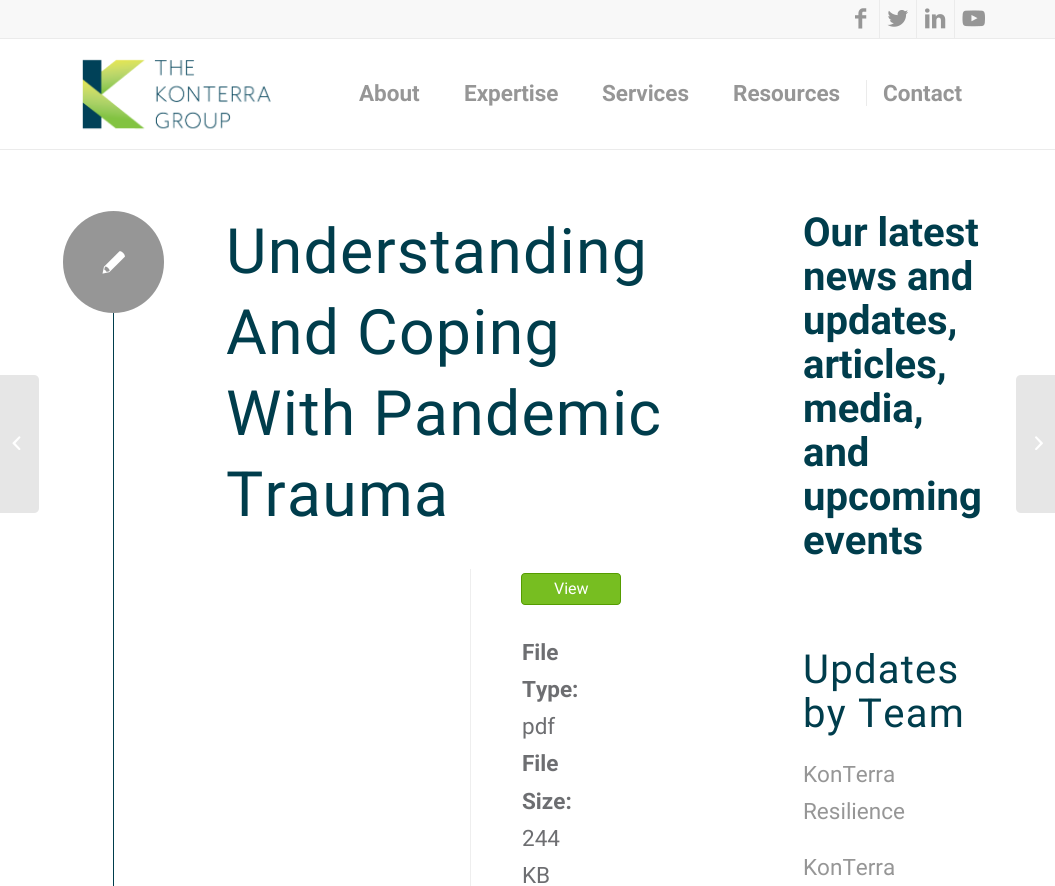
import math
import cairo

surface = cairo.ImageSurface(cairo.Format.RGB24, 1055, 886)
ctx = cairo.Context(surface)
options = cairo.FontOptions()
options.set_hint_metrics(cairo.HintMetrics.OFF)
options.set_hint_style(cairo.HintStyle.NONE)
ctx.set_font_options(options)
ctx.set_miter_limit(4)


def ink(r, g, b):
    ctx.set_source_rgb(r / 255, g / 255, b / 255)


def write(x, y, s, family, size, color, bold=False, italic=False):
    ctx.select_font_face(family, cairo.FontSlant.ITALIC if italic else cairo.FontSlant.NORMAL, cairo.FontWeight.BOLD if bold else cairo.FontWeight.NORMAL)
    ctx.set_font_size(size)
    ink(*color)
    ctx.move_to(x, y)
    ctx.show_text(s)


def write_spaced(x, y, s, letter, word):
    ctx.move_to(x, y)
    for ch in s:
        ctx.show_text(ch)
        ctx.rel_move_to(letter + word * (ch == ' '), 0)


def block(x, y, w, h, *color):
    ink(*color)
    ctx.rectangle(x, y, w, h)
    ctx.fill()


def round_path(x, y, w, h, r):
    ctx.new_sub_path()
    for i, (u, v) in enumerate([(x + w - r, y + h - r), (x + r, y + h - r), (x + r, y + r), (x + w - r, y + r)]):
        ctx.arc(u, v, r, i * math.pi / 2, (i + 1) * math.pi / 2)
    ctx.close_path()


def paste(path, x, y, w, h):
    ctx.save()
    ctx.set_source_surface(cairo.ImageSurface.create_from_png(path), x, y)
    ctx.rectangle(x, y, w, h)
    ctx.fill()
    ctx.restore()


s1 = dict(family="Roboto", size=22.5, color=(150, 150, 150), bold=True)
s2 = dict(family="Roboto", size=16, color=(255, 255, 255))
s3 = dict(family="Roboto", size=22.5, color=(109, 110, 113), bold=True)
s4 = dict(family="Roboto", size=22.5, color=(109, 110, 113))
s5 = dict(family="Roboto", size=40, color=(0, 61, 76), bold=True)
s6 = dict(family="Roboto", size=22.5, color=(150, 150, 150))

ink(255, 255, 255)
ctx.paint()
block(0, 0, 1055, 38, 248, 248, 248)
block(0, 38, 1055, 1, 235, 235, 235)
block(879, 0, 1, 38, 235, 235, 235)
paste("pic1.png", 855, 8, 12, 21)
block(916, 0, 1, 38, 235, 235, 235)
paste("pic2.png", 887, 10, 21, 17)
block(954, 0, 1, 38, 235, 235, 235)
paste("pic3.png", 925, 8, 21, 21)
paste("pic4.png", 962, 10, 23, 17)
block(0, 149, 1055, 1, 235, 235, 235)
paste("pic5.png", 82, 59, 189, 71)
write(359, 101, "About", **s1)
write(464, 101, "Expertise", **s1)
write(602, 101, "Services", **s1)
write(733, 101, "Resources", **s1)
write(883, 101, "Contact", **s1)
block(866, 80, 1, 26, 235, 235, 235)
ink(230, 230, 230)
ctx.new_path()
ctx.move_to(0, 375)
ctx.line_to(34, 375)
ctx.curve_to(37, 375, 39, 377, 39, 380)
ctx.line_to(39, 508)
ctx.curve_to(39, 511, 37, 513, 34, 513)
ctx.line_to(0, 513)
ctx.close_path()
ctx.fill()
paste("pic6.png", 12, 436, 9, 14)
ink(150, 150, 150)
round_path(63, 211, 101, 102, 50.5)
ctx.fill()
paste("pic7.png", 102, 251, 23, 23)
ctx.select_font_face("Roboto")
ctx.set_font_size(62.5)
ink(0, 61, 76)
write_spaced(226, 273, "Understanding", 1.25, 0)
write_spaced(226, 354, "And Coping", 1.25, 0)
write_spaced(226, 435, "With Pandemic", 1.25, 0)
write_spaced(226, 516, "Trauma", 1.25, 0)
block(470, 569, 1, 317, 238, 238, 238)
ink(119, 190, 33)
round_path(521.5, 573.5, 99, 31, 3.5)
ctx.fill_preserve()
ink(85, 156, 0)
ctx.set_line_width(1)
ctx.stroke()
write(554, 594, "View", **s2)
write(522, 660, "File", **s3)
write(522, 697, "Type:", **s3)
write(522, 734, "pdf", **s4)
write(522, 771, "File", **s3)
write(522, 809, "Size:", **s3)
write(522, 846, "244", **s4)
write(522, 883, "KB", **s4)
block(113, 313, 1, 573, 0, 61, 76)
write(803, 246, "Our latest", **s5)
write(803, 290, "news and", **s5)
write(803, 334, "updates,", **s5)
write(803, 378, "articles,", **s5)
write(803, 422, "media,", **s5)
write(803, 466, "and", **s5)
write(803, 510, "upcoming", **s5)
write(803, 554, "events", **s5)
ctx.select_font_face("Roboto")
write_spaced(803, 683, "Updates", 1.25, 0)
write_spaced(803, 727, "by Team", 1.25, 0)
write(803, 782, "KonTerra", **s6)
write(803, 819, "Resilience", **s6)
write(803, 875, "KonTerra", **s6)
ink(230, 230, 230)
ctx.new_path()
ctx.move_to(1021, 375)
ctx.line_to(1055, 375)
ctx.line_to(1055, 513)
ctx.line_to(1021, 513)
ctx.curve_to(1018, 513, 1016, 511, 1016, 508)
ctx.line_to(1016, 380)
ctx.curve_to(1016, 377, 1018, 375, 1021, 375)
ctx.close_path()
ctx.fill()
paste("pic8.png", 1035, 436, 8, 14)
surface.write_to_png("screenshot.png")
